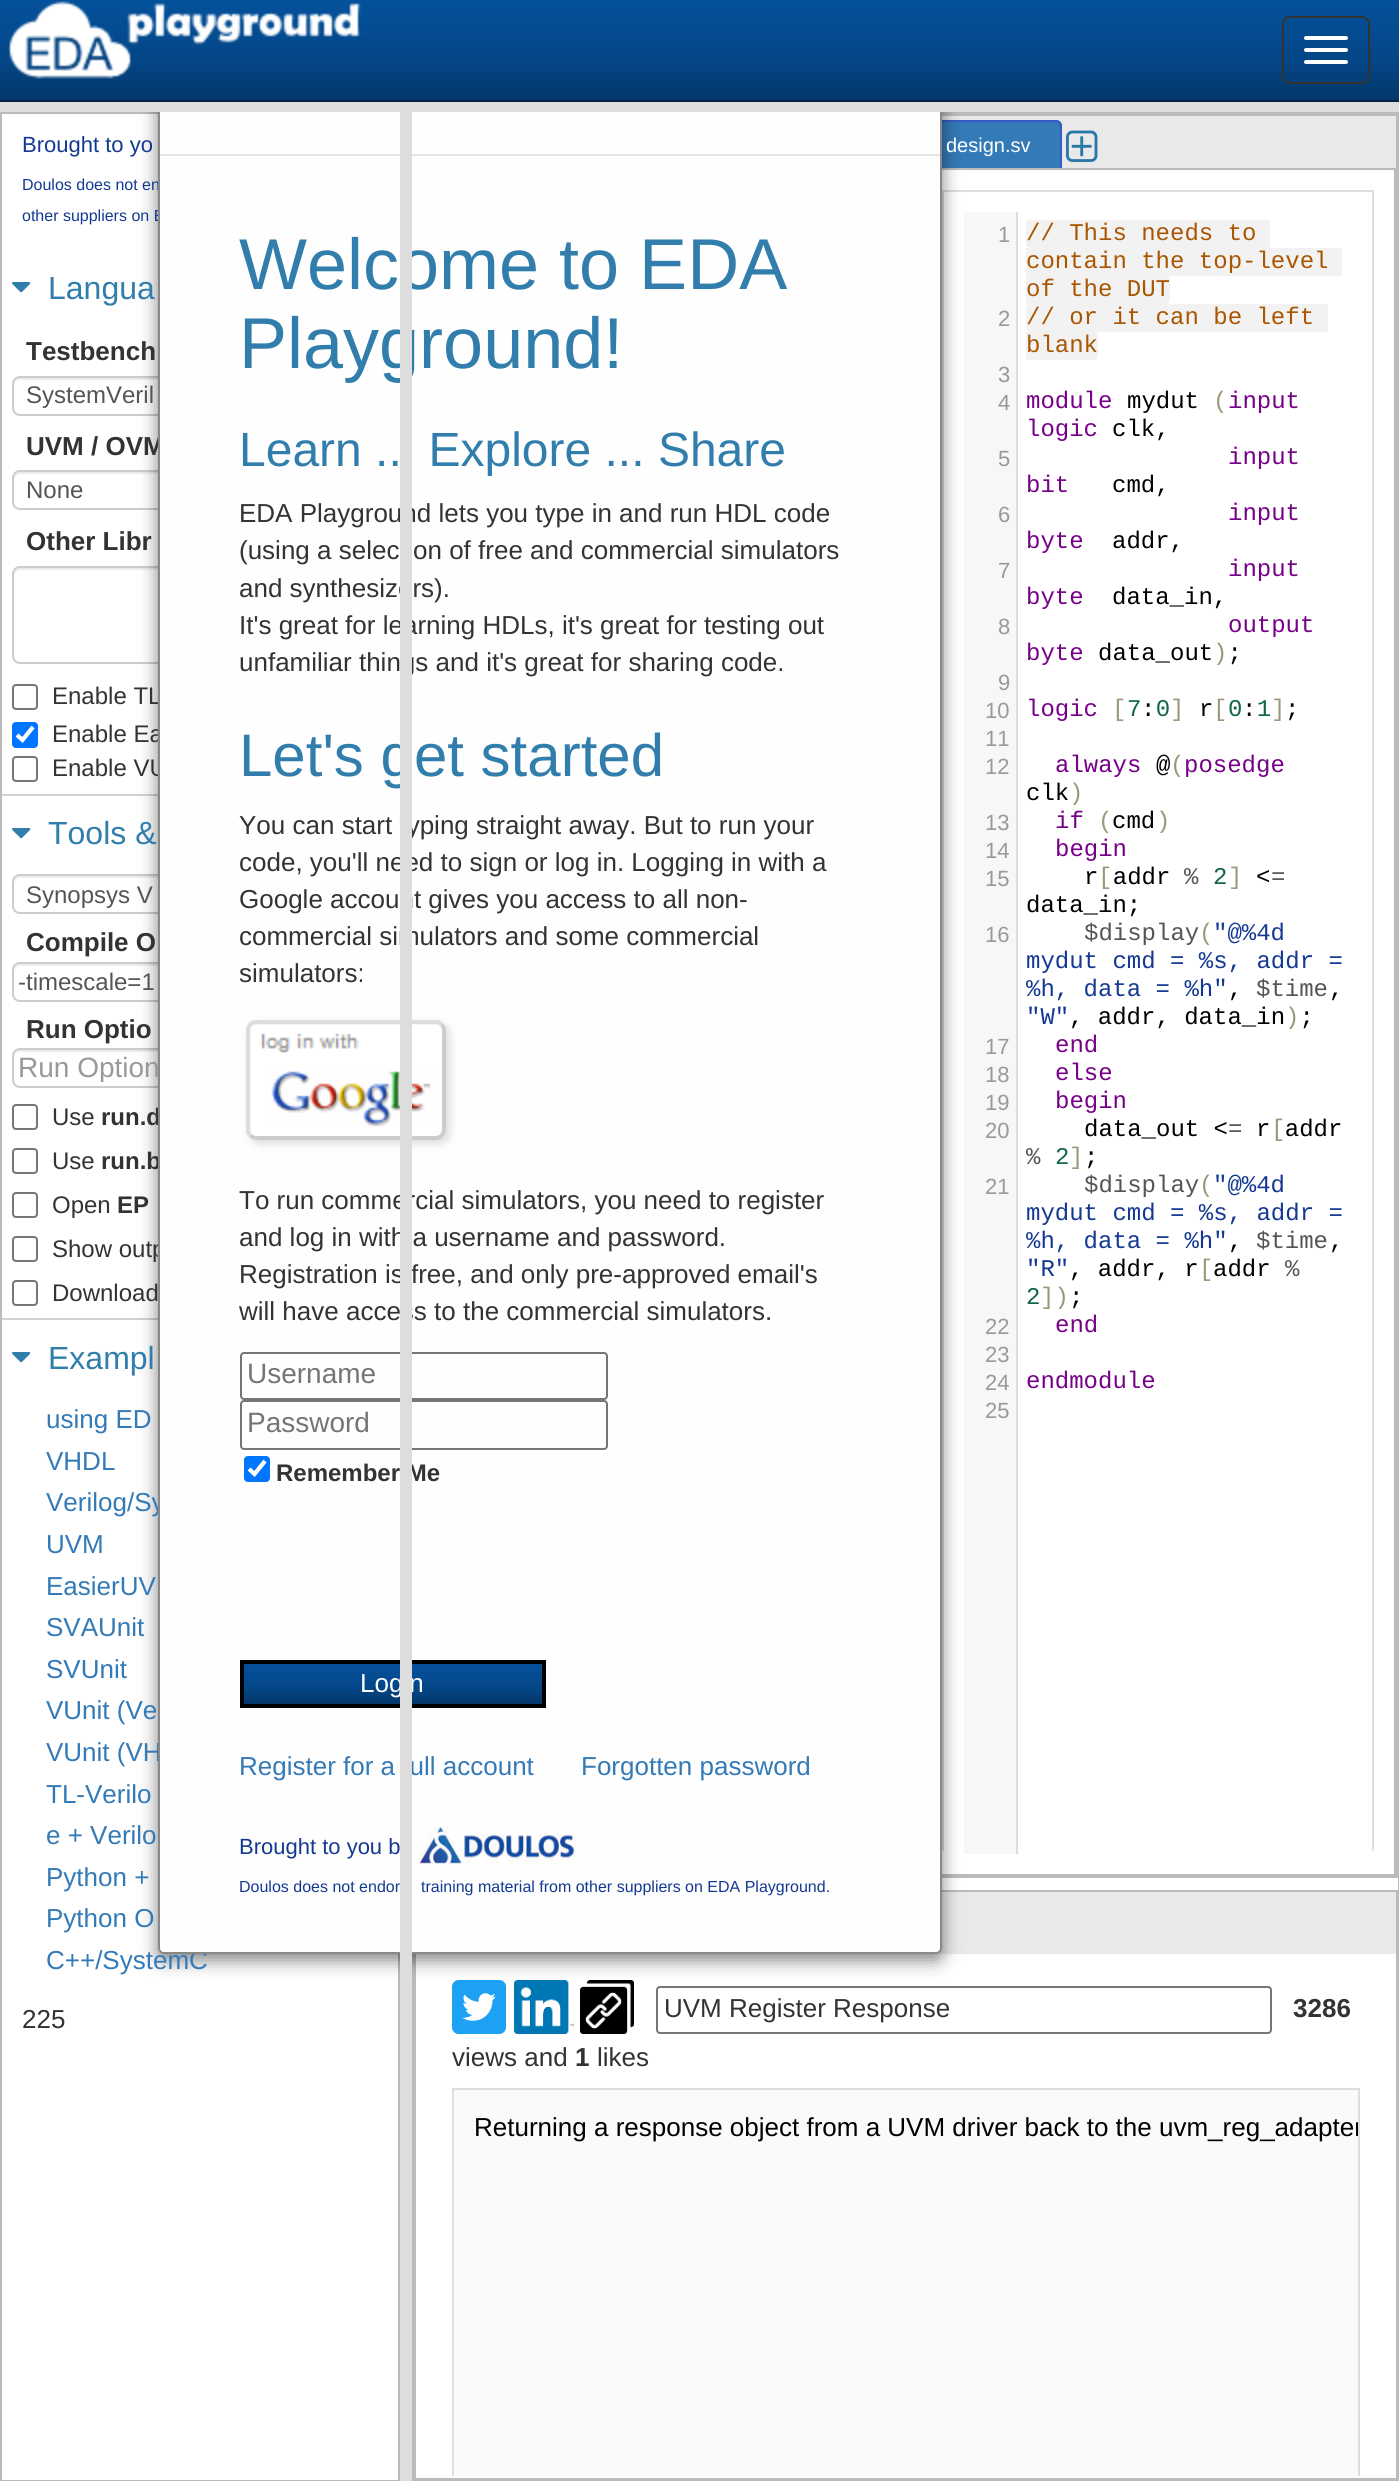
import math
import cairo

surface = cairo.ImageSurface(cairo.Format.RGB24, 1399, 2481)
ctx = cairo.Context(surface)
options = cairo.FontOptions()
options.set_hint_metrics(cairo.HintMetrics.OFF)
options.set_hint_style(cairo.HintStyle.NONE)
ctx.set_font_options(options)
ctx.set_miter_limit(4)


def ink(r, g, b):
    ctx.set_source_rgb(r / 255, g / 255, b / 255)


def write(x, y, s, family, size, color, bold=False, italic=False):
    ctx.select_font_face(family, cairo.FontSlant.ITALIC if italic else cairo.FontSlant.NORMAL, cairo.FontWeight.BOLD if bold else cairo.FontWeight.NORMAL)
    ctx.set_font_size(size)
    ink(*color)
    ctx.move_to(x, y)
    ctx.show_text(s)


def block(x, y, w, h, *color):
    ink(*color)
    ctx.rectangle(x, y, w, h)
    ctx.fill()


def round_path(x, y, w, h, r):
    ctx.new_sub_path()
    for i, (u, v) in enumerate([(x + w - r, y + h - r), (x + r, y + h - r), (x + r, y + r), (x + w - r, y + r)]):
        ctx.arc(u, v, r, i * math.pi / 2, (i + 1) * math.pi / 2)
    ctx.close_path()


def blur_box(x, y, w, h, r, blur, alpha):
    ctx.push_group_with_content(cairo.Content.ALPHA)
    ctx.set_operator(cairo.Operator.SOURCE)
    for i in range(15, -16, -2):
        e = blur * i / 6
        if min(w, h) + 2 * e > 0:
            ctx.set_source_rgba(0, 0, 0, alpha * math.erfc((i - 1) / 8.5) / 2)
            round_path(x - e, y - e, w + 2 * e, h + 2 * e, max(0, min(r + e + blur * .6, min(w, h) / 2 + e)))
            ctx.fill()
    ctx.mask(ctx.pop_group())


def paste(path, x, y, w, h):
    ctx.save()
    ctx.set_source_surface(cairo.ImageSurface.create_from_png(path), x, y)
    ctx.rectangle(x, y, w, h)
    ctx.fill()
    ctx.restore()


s1 = dict(family="Liberation Sans", size=16, color=(20, 57, 146))
s2 = dict(family="Liberation Sans", size=26, color=(51, 51, 51), bold=True)
s3 = dict(family="Liberation Sans", size=24, color=(51, 51, 51))
s4 = dict(family="Liberation Sans", size=24, color=(51, 51, 51), bold=True)
s5 = dict(family="Liberation Sans", size=26, color=(51, 122, 183))
s6 = dict(family="Liberation Sans", size=22, color=(20, 57, 146))
s7 = dict(family="Liberation Sans", size=32, color=(49, 126, 172))
s8 = dict(family="Liberation Sans", size=24, color=(85, 85, 85))
s9 = dict(family="Liberation Sans", size=28, color=(153, 153, 153))
s10 = dict(family="Liberation Sans", size=26, color=(51, 51, 51))
s11 = dict(family="Liberation Sans", size=72, color=(49, 126, 172))
s12 = dict(family="Liberation Sans", size=48, color=(49, 126, 172))
s13 = dict(family="Liberation Sans", size=60, color=(49, 126, 172))
s14 = dict(family="Liberation Sans", size=26, color=(255, 255, 255))
s15 = dict(family="Liberation Sans", size=20, color=(255, 255, 255))
s16 = dict(family="Liberation Sans", size=22, color=(153, 153, 153))
s17 = dict(family="Liberation Mono", size=24, color=(170, 85, 0))
s18 = dict(family="Liberation Mono", size=24, color=(119, 0, 136))
s19 = dict(family="Liberation Mono", size=24, color=(0, 0, 0))
s20 = dict(family="Liberation Mono", size=24, color=(153, 153, 119))
s21 = dict(family="Liberation Mono", size=24, color=(17, 102, 68))
s22 = dict(family="Liberation Mono", size=24, color=(85, 85, 85))
s23 = dict(family="Liberation Mono", size=24, color=(20, 57, 146))
s24 = dict(family="Liberation Sans", size=26, color=(0, 0, 0))
s25 = dict(family="Liberation Sans", size=28, color=(117, 117, 117))

ink(255, 255, 255)
ctx.paint()
ctx.rectangle(1, 113, 398, 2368)
ink(187, 187, 187)
ctx.stroke()
ink(236, 236, 236)
ctx.new_path()
ctx.move_to(20, 380)
ctx.line_to(380, 380)
ctx.curve_to(383, 380, 386, 383, 386, 386)
ctx.line_to(386, 384)
ctx.curve_to(386, 381, 383, 378, 380, 378)
ctx.line_to(20, 378)
ctx.curve_to(17, 378, 14, 381, 14, 384)
ctx.line_to(14, 386)
ctx.curve_to(14, 383, 17, 380, 20, 380)
ctx.close_path()
ctx.fill()
round_path(13, 377, 374, 38, 7)
ink(204, 204, 204)
ctx.stroke()
ink(236, 236, 236)
ctx.new_path()
ctx.move_to(20, 474)
ctx.line_to(380, 474)
ctx.curve_to(383, 474, 386, 477, 386, 480)
ctx.line_to(386, 478)
ctx.curve_to(386, 475, 383, 472, 380, 472)
ctx.line_to(20, 472)
ctx.curve_to(17, 472, 14, 475, 14, 478)
ctx.line_to(14, 480)
ctx.curve_to(14, 477, 17, 474, 20, 474)
ctx.close_path()
ctx.fill()
round_path(13, 471, 374, 38, 7)
ink(204, 204, 204)
ctx.stroke()
ink(236, 236, 236)
ctx.new_path()
ctx.move_to(20, 570)
ctx.line_to(380, 570)
ctx.curve_to(383, 570, 386, 573, 386, 576)
ctx.line_to(386, 574)
ctx.curve_to(386, 571, 383, 568, 380, 568)
ctx.line_to(20, 568)
ctx.curve_to(17, 568, 14, 571, 14, 574)
ctx.line_to(14, 576)
ctx.curve_to(14, 573, 17, 570, 20, 570)
ctx.close_path()
ctx.fill()
round_path(13, 567, 374, 96, 7)
ink(204, 204, 204)
ctx.stroke()
block(2, 794, 156, 2, 210, 210, 210)
ink(236, 236, 236)
ctx.new_path()
ctx.move_to(20, 878)
ctx.line_to(380, 878)
ctx.curve_to(383, 878, 386, 881, 386, 884)
ctx.line_to(386, 882)
ctx.curve_to(386, 879, 383, 876, 380, 876)
ctx.line_to(20, 876)
ctx.curve_to(17, 876, 14, 879, 14, 882)
ctx.line_to(14, 884)
ctx.curve_to(14, 881, 17, 878, 20, 878)
ctx.close_path()
ctx.fill()
round_path(13, 875, 374, 38, 7)
ink(204, 204, 204)
ctx.stroke()
ink(236, 236, 236)
ctx.new_path()
ctx.move_to(20, 966)
ctx.line_to(380, 966)
ctx.curve_to(383, 966, 386, 969, 386, 972)
ctx.line_to(386, 970)
ctx.curve_to(386, 967, 383, 964, 380, 964)
ctx.line_to(20, 964)
ctx.curve_to(17, 964, 14, 967, 14, 970)
ctx.line_to(14, 972)
ctx.curve_to(14, 969, 17, 966, 20, 966)
ctx.close_path()
ctx.fill()
round_path(13, 963, 374, 38, 7)
ink(204, 204, 204)
ctx.stroke()
ink(236, 236, 236)
ctx.new_path()
ctx.move_to(20, 1052)
ctx.line_to(380, 1052)
ctx.curve_to(383, 1052, 386, 1055, 386, 1058)
ctx.line_to(386, 1056)
ctx.curve_to(386, 1053, 383, 1050, 380, 1050)
ctx.line_to(20, 1050)
ctx.curve_to(17, 1050, 14, 1053, 14, 1056)
ctx.line_to(14, 1058)
ctx.curve_to(14, 1055, 17, 1052, 20, 1052)
ctx.close_path()
ctx.fill()
round_path(13, 1049, 374, 38, 7)
ink(204, 204, 204)
ctx.stroke()
block(2, 1318, 156, 2, 210, 210, 210)
ctx.rectangle(413, 113, 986, 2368)
ink(187, 187, 187)
ctx.stroke()
ctx.rectangle(919, 115, 478, 1762)
ctx.stroke()
block(942, 116, 454, 52, 233, 233, 233)
ink(51, 122, 183)
ctx.new_path()
ctx.move_to(930, 120)
ctx.line_to(1056, 120)
ctx.curve_to(1059.5, 120, 1062, 122.5, 1062, 126)
ctx.line_to(1062, 168)
ctx.line_to(924, 168)
ctx.line_to(924, 126)
ctx.curve_to(924, 122.5, 926.5, 120, 930, 120)
ctx.close_path()
ctx.fill()
ink(53, 89, 199)
ctx.set_fill_rule(cairo.FillRule.EVEN_ODD)
ctx.new_path()
ctx.move_to(930, 120)
ctx.line_to(1056, 120)
ctx.curve_to(1059, 120, 1062, 123, 1062, 126)
ctx.line_to(1062, 168)
ctx.line_to(924, 168)
ctx.line_to(924, 126)
ctx.curve_to(924, 123, 927, 120, 930, 120)
ctx.close_path()
ctx.move_to(930, 122)
ctx.line_to(1056, 122)
ctx.curve_to(1058, 122, 1060, 124, 1060, 126)
ctx.line_to(1060, 168)
ctx.line_to(926, 168)
ctx.line_to(926, 126)
ctx.curve_to(926, 124, 928, 122, 930, 122)
ctx.close_path()
ctx.fill()
ctx.rectangle(921, 169, 474, 1706)
ink(187, 187, 187)
ctx.stroke()
ink(221, 221, 221)
ctx.set_fill_rule(cairo.FillRule.WINDING)
ctx.new_path()
ctx.move_to(942, 190)
ctx.line_to(942, 1848)
ctx.curve_to(942, 1850, 943, 1851, 944, 1852)
ctx.line_to(944, 192)
ctx.line_to(1372, 192)
ctx.line_to(1372, 1852)
ctx.curve_to(1373, 1851, 1374, 1850, 1374, 1848)
ctx.line_to(1374, 190)
ctx.close_path()
ctx.fill()
block(964, 212, 52, 1642, 247, 247, 247)
ctx.rectangle(415, 1891, 982, 588)
ink(187, 187, 187)
ctx.stroke()
block(936, 1892, 460, 62, 233, 233, 233)
paste("pic4.png", 452, 1980, 54, 54)
paste("pic5.png", 514, 1980, 60, 54)
paste("pic6.png", 580, 1980, 54, 54)
round_path(657, 1987, 614, 46, 3)
ink(118, 118, 118)
ctx.stroke()
ink(0, 0, 0)
blur_box(158, 46, 784, 1914, 6, 9, 0.5)
write(22, 190, "Doulos does not en", **s1)
write(22, 221, "other suppliers on E", **s1)
write(26, 455, "UVM / OVM", **s2)
write(52, 704, "Enable TL", **s3)
write(52, 742, "Enable Ea", **s3)
write(52, 776, "Enable VU", **s3)
write(101, 1125, "run.d", **s4)
write(101, 1169, "run.b", **s4)
write(52, 1257, "Show outp", **s3)
write(46, 1511, "Verilog/Sy", **s5)
write(46, 1761, "VUnit (VH", **s5)
write(46, 1969, "C++/SystemC", **s5)
ink(254, 254, 254)
round_path(159, 41, 782, 1912, 5)
ctx.fill_preserve()
ink(136, 136, 136)
ctx.stroke()
gradient = cairo.LinearGradient(700, 0, 700, 100)
gradient.add_color_stop_rgba(0, 0.016, 0.318, 0.608, 1)
gradient.add_color_stop_rgba(0.6, 0.016, 0.275, 0.529, 1)
gradient.add_color_stop_rgba(1, 0.012, 0.216, 0.412, 1)
ctx.set_source(gradient)
ctx.rectangle(0, 0, 1399, 100)
ctx.fill()
block(0, 100, 1399, 2, 2, 34, 65)
paste("pic1.png", 8, 1, 353, 78)
round_path(1283, 17, 86, 66, 7)
ink(51, 51, 51)
ctx.stroke()
ink(255, 255, 255)
round_path(1304, 36, 44, 4, 2)
ctx.fill()
round_path(1304, 48, 44, 4, 2)
ctx.fill()
round_path(1304, 60, 44, 4, 2)
ctx.fill()
block(0, 102, 1399, 10, 221, 221, 221)
write(22, 152, "Brought to yo", **s6)
paste("pic2.png", 12, 282, 19, 11)
write(48, 299, "Langua", **s7)
write(26, 360, "Testbench", **s2)
write(26, 403, "SystemVeril", **s8)
write(26, 498, "None", **s8)
write(26, 550, "Other Libr", **s2)
round_path(13, 685, 24, 24, 3)
ink(118, 118, 118)
ctx.stroke()
ink(0, 117, 255)
round_path(12, 722, 26, 26, 4)
ctx.fill()
ctx.new_path()
ctx.move_to(17, 735)
ctx.line_to(22.5, 740)
ctx.line_to(33, 727)
ink(255, 255, 255)
ctx.set_line_width(4.2)
ctx.stroke()
round_path(13, 757, 24, 24, 3)
ink(118, 118, 118)
ctx.set_line_width(2)
ctx.stroke()
paste("pic2.png", 12, 828, 19, 11)
write(48, 844, "Tools &", **s7)
write(26, 903, "Synopsys V", **s8)
write(26, 951, "Compile O", **s2)
write(18, 990, "-timescale=1", **s8)
write(26, 1038, "Run Optio", **s2)
ctx.save()
ctx.rectangle(18, 1050, 368, 32)
ctx.clip()
write(18, 1077, "Run Option", **s9)
ctx.restore()
round_path(13, 1105, 24, 24, 3)
ink(118, 118, 118)
ctx.stroke()
write(52, 1125, "Use", **s3)
round_path(13, 1149, 24, 24, 3)
ink(118, 118, 118)
ctx.stroke()
write(52, 1169, "Use", **s3)
round_path(13, 1193, 24, 24, 3)
ink(118, 118, 118)
ctx.stroke()
write(52, 1213, "Open", **s3)
write(117, 1213, "EP", **s4)
round_path(13, 1237, 24, 24, 3)
ink(118, 118, 118)
ctx.stroke()
round_path(13, 1281, 24, 24, 3)
ctx.stroke()
write(52, 1301, "Download", **s3)
paste("pic2.png", 12, 1352, 19, 11)
write(48, 1369, "Exampl", **s7)
write(46, 1428, "using ED", **s5)
write(46, 1470, "VHDL", **s5)
write(46, 1553, "UVM", **s5)
write(46, 1595, "EasierUV", **s5)
write(46, 1636, "SVAUnit", **s5)
write(46, 1678, "SVUnit", **s5)
write(46, 1719, "VUnit (Ve", **s5)
write(46, 1803, "TL-Verilo", **s5)
write(46, 1844, "e + Verilo", **s5)
write(46, 1886, "Python +", **s5)
write(46, 1927, "Python O", **s5)
write(22, 2028, "225", **s10)
block(160, 154, 780, 2, 229, 229, 229)
write(239, 289, "Welcome to EDA", **s11)
write(239, 368, "Playground!", **s11)
write(239, 466, "Learn ... Explore ... Share", **s12)
write(239, 522, "EDA Playground lets you type in and run HDL code", **s10)
write(239, 597, "and synthesizers).", **s10)
write(239, 634, "It's great for learning HDLs, it's great for testing out", **s10)
write(239, 671, "unfamiliar things and it's great for sharing code.", **s10)
write(239, 776, "Let's get started", **s13)
write(239, 834, "You can start typing straight away. But to run your", **s10)
write(239, 871, "code, you'll need to sign or log in. Logging in with a", **s10)
write(239, 908, "Google account gives you access to all non-", **s10)
write(239, 945, "commercial simulators and some commercial", **s10)
ink(221, 221, 221)
blur_box(250, 1024, 200, 120, 10, 4, 1)
paste("pic7.png", 246, 1020, 200, 118)
ctx.new_path()
ctx.move_to(441.5, 1024.5)
ctx.curve_to(443, 1026, 444, 1028, 444, 1030)
ctx.line_to(444, 1130)
ctx.curve_to(444, 1132, 443, 1134, 441.5, 1135.5)
ctx.curve_to(440, 1137, 438, 1138, 436, 1138)
ctx.line_to(256, 1138)
ctx.curve_to(254, 1138, 252, 1137, 250.5, 1135.5)
ink(204, 204, 204)
ctx.set_line_width(4)
ctx.stroke()
ctx.new_path()
ctx.move_to(250.5, 1135.5)
ctx.curve_to(249, 1134, 248, 1132, 248, 1130)
ctx.line_to(248, 1030)
ctx.curve_to(248, 1028, 249, 1026, 250.5, 1024.5)
ctx.curve_to(252, 1023, 254, 1022, 256, 1022)
ctx.line_to(436, 1022)
ctx.curve_to(438, 1022, 440, 1023, 441.5, 1024.5)
ink(221, 221, 221)
ctx.stroke()
write(239, 1209, "To run commercial simulators, you need to register", **s10)
write(239, 1246, "and log in with a username and password.", **s10)
write(239, 1283, "Registration is free, and only pre-approved email's", **s10)
write(239, 1320, "will have access to the commercial simulators.", **s10)
round_path(241, 1353, 366, 46, 3)
ink(118, 118, 118)
ctx.set_line_width(2)
ctx.stroke()
round_path(241, 1401, 366, 48, 3)
ctx.stroke()
write(276, 1481, "Remember Me", **s4)
gradient = cairo.LinearGradient(393, 1664, 393, 1704)
gradient.add_color_stop_rgba(0, 0.016, 0.318, 0.608, 1)
gradient.add_color_stop_rgba(0.6, 0.016, 0.275, 0.529, 1)
gradient.add_color_stop_rgba(1, 0.012, 0.216, 0.412, 1)
ctx.set_source(gradient)
ctx.rectangle(244, 1664, 298, 40)
ctx.fill()
ctx.rectangle(242, 1662, 302, 44)
ink(0, 0, 0)
ctx.set_line_width(4)
ctx.stroke()
write(360, 1692, "Login", **s14)
write(239, 1775, "Register for a full account", **s5)
write(239, 1854, "Brought to you b", **s6)
block(400, 112, 12, 2369, 221, 221, 221)
write(946, 152, "design.sv", **s15)
paste("pic3.png", 1066, 130, 32, 32)
block(1016, 212, 2, 1642, 221, 221, 221)
write(998, 242, "1", **s16)
ink(242, 242, 242)
ctx.new_path()
ctx.move_to(1030, 220)
ctx.line_to(1256, 220)
ctx.line_to(1256, 248)
ctx.line_to(1030, 248)
ctx.curve_to(1028, 248, 1026, 246, 1026, 244)
ctx.line_to(1026, 224)
ctx.curve_to(1026, 222, 1028, 220, 1030, 220)
ctx.close_path()
ctx.fill()
write(1026, 240, "// This needs to", **s17)
block(1256, 220, 14, 28, 242, 242, 242)
block(1026, 248, 316, 28, 242, 242, 242)
write(1026, 268, "contain the top-level", **s17)
ink(242, 242, 242)
ctx.new_path()
ctx.move_to(1026, 276)
ctx.line_to(1166, 276)
ctx.curve_to(1168, 276, 1170, 278, 1170, 280)
ctx.line_to(1170, 300)
ctx.curve_to(1170, 302, 1168, 304, 1166, 304)
ctx.line_to(1026, 304)
ctx.close_path()
ctx.fill()
write(1026, 296, "of the DUT", **s17)
write(998, 326, "2", **s16)
ink(242, 242, 242)
ctx.new_path()
ctx.move_to(1030, 304)
ctx.line_to(1314, 304)
ctx.line_to(1314, 332)
ctx.line_to(1030, 332)
ctx.curve_to(1028, 332, 1026, 330, 1026, 328)
ctx.line_to(1026, 308)
ctx.curve_to(1026, 306, 1028, 304, 1030, 304)
ctx.close_path()
ctx.fill()
write(1026, 324, "// or it can be left", **s17)
block(1314, 304, 14, 28, 242, 242, 242)
ctx.new_path()
ctx.move_to(1026, 332)
ctx.line_to(1094, 332)
ctx.curve_to(1096, 332, 1098, 334, 1098, 336)
ctx.line_to(1098, 356)
ctx.curve_to(1098, 358, 1096, 360, 1094, 360)
ctx.line_to(1026, 360)
ctx.close_path()
ctx.fill()
write(1026, 352, "blank", **s17)
write(998, 382, "3", **s16)
write(998, 410, "4", **s16)
write(1026, 408, "module", **s18)
write(1127, 408, "mydut", **s19)
write(1213, 408, "(", **s20)
write(1228, 408, "input", **s18)
write(1026, 436, "logic", **s18)
write(1112, 436, "clk,", **s19)
write(998, 466, "5", **s16)
write(1228, 464, "input", **s18)
write(1026, 492, "bit", **s18)
write(1112, 492, "cmd,", **s19)
write(998, 522, "6", **s16)
write(1228, 520, "input", **s18)
write(1026, 548, "byte", **s18)
write(1112, 548, "addr,", **s19)
write(998, 578, "7", **s16)
write(1228, 576, "input", **s18)
write(1026, 604, "byte", **s18)
write(1112, 604, "data_in,", **s19)
write(998, 634, "8", **s16)
write(1228, 632, "output", **s18)
write(1026, 660, "byte", **s18)
write(1098, 660, "data_out ;", **s19)
write(1213, 660, ")", **s20)
write(998, 690, "9", **s16)
write(985, 718, "10", **s16)
write(1026, 716, "logic", **s18)
write(1112, 716, "[", **s20)
write(1127, 716, "7 0", **s21)
write(1170, 716, "]", **s20)
write(1213, 716, "[", **s20)
write(1228, 716, "0 1", **s21)
write(1271, 716, "]", **s20)
write(1141, 716, ":", **s19)
write(1199, 716, "r", **s19)
write(1242, 716, ":", **s19)
write(1285, 716, ";", **s19)
write(985, 746, "11", **s16)
write(985, 774, "12", **s16)
write(1055, 772, "always", **s18)
write(1156, 772, "@", **s19)
write(1170, 772, "(", **s20)
write(1184, 772, "posedge", **s18)
write(1026, 800, "clk", **s19)
write(1069, 800, ")", **s20)
write(985, 830, "13", **s16)
write(1055, 828, "if", **s18)
write(1098, 828, "(", **s20)
write(1112, 828, "cmd", **s19)
write(1156, 828, ")", **s20)
write(985, 858, "14", **s16)
write(1055, 856, "begin", **s18)
write(985, 886, "15", **s16)
write(1084, 884, "r addr", **s19)
write(1098, 884, "[", **s20)
write(1184, 884, "%", **s22)
write(1213, 884, "2", **s21)
write(1228, 884, "]", **s20)
write(1256, 884, "<", **s19)
write(1271, 884, "=", **s22)
write(1026, 912, "data_in;", **s19)
write(985, 942, "16", **s16)
write(1084, 940, "$display", **s22)
write(1199, 940, "(", **s20)
write(1213, 940, "\"@%4d", **s23)
write(1026, 968, "mydut cmd = %s, addr =", **s23)
write(1026, 996, "%h, data = %h\"", **s23)
write(1228, 996, ",", **s19)
write(1256, 996, "$time", **s22)
write(1329, 996, ",", **s19)
write(1026, 1024, "\"W\"", **s23)
write(1069, 1024, ", addr, data_in ;", **s19)
write(1285, 1024, ")", **s20)
write(985, 1054, "17", **s16)
write(1055, 1052, "end", **s18)
write(985, 1082, "18", **s16)
write(1055, 1080, "else", **s18)
write(985, 1110, "19", **s16)
write(1055, 1108, "begin", **s18)
write(985, 1138, "20", **s16)
write(1084, 1136, "data_out <", **s19)
write(1256, 1136, "r addr", **s19)
write(1228, 1136, "=", **s22)
write(1271, 1136, "[", **s20)
write(1026, 1164, "%", **s22)
write(1055, 1164, "2", **s21)
write(1069, 1164, "]", **s20)
write(1084, 1164, ";", **s19)
write(985, 1194, "21", **s16)
write(1084, 1192, "$display", **s22)
write(1199, 1192, "(", **s20)
write(1213, 1192, "\"@%4d", **s23)
write(1026, 1220, "mydut cmd = %s, addr =", **s23)
write(1026, 1248, "%h, data = %h\"", **s23)
write(1228, 1248, ",", **s19)
write(1256, 1248, "$time", **s22)
write(1329, 1248, ",", **s19)
write(1026, 1276, "\"R\"", **s23)
write(1069, 1276, ", addr, r addr", **s19)
write(1199, 1276, "[", **s20)
write(1285, 1276, "%", **s22)
write(1026, 1304, "2", **s21)
write(1040, 1304, "])", **s20)
write(1069, 1304, ";", **s19)
write(985, 1334, "22", **s16)
write(1055, 1332, "end", **s18)
write(985, 1362, "23", **s16)
write(985, 1390, "24", **s16)
write(1026, 1388, "endmodule", **s18)
write(985, 1418, "25", **s16)
write(664, 2017, "UVM Register Response", **s10)
write(1293, 2017, "3286", **s2)
write(452, 2066, "views and", **s10)
write(575, 2066, "1", **s2)
write(597, 2066, "likes", **s10)
ctx.save()
ctx.rectangle(416, 1954, 980, 522)
ctx.clip()
ctx.new_path()
ctx.move_to(453, 2089)
ctx.line_to(1359, 2089)
ctx.line_to(1359, 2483)
ctx.curve_to(1359, 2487, 1356, 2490, 1352, 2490)
ctx.line_to(460, 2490)
ctx.curve_to(456, 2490, 453, 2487, 453, 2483)
ctx.close_path()
ink(221, 221, 221)
ctx.set_line_width(2)
ctx.stroke()
ctx.restore()
block(454, 2090, 904, 386, 250, 250, 250)
ctx.save()
ctx.new_path()
ctx.move_to(454, 2090)
ctx.line_to(1358, 2090)
ctx.line_to(1358, 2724)
ctx.curve_to(1358, 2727.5, 1355.5, 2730, 1352, 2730)
ctx.line_to(460, 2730)
ctx.curve_to(456.5, 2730, 454, 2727.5, 454, 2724)
ctx.close_path()
ctx.clip()
write(474, 2136, "Returning a response object from a UVM driver back to the uvm_reg_adapter", **s24)
ctx.restore()
write(239, 559, "(using a selec", **s10)
write(413, 559, "on of free and commercial simulators", **s10)
write(239, 982, "simulators:", **s10)
write(247, 1383, "Username", **s25)
write(247, 1432, "Password", **s25)
ink(0, 117, 255)
round_path(244, 1456, 26, 26, 4)
ctx.fill()
ctx.new_path()
ctx.move_to(249, 1469)
ctx.line_to(254.5, 1474)
ctx.line_to(265, 1461)
ink(255, 255, 255)
ctx.set_line_width(4.2)
ctx.stroke()
write(581, 1775, "Forgotten password", **s5)
paste("pic8.png", 418, 1826, 159, 38)
write(239, 1892, "Doulos does not endor", **s1)
write(421, 1892, "training material from other suppliers on EDA Playground.", **s1)
surface.write_to_png("screenshot.png")
